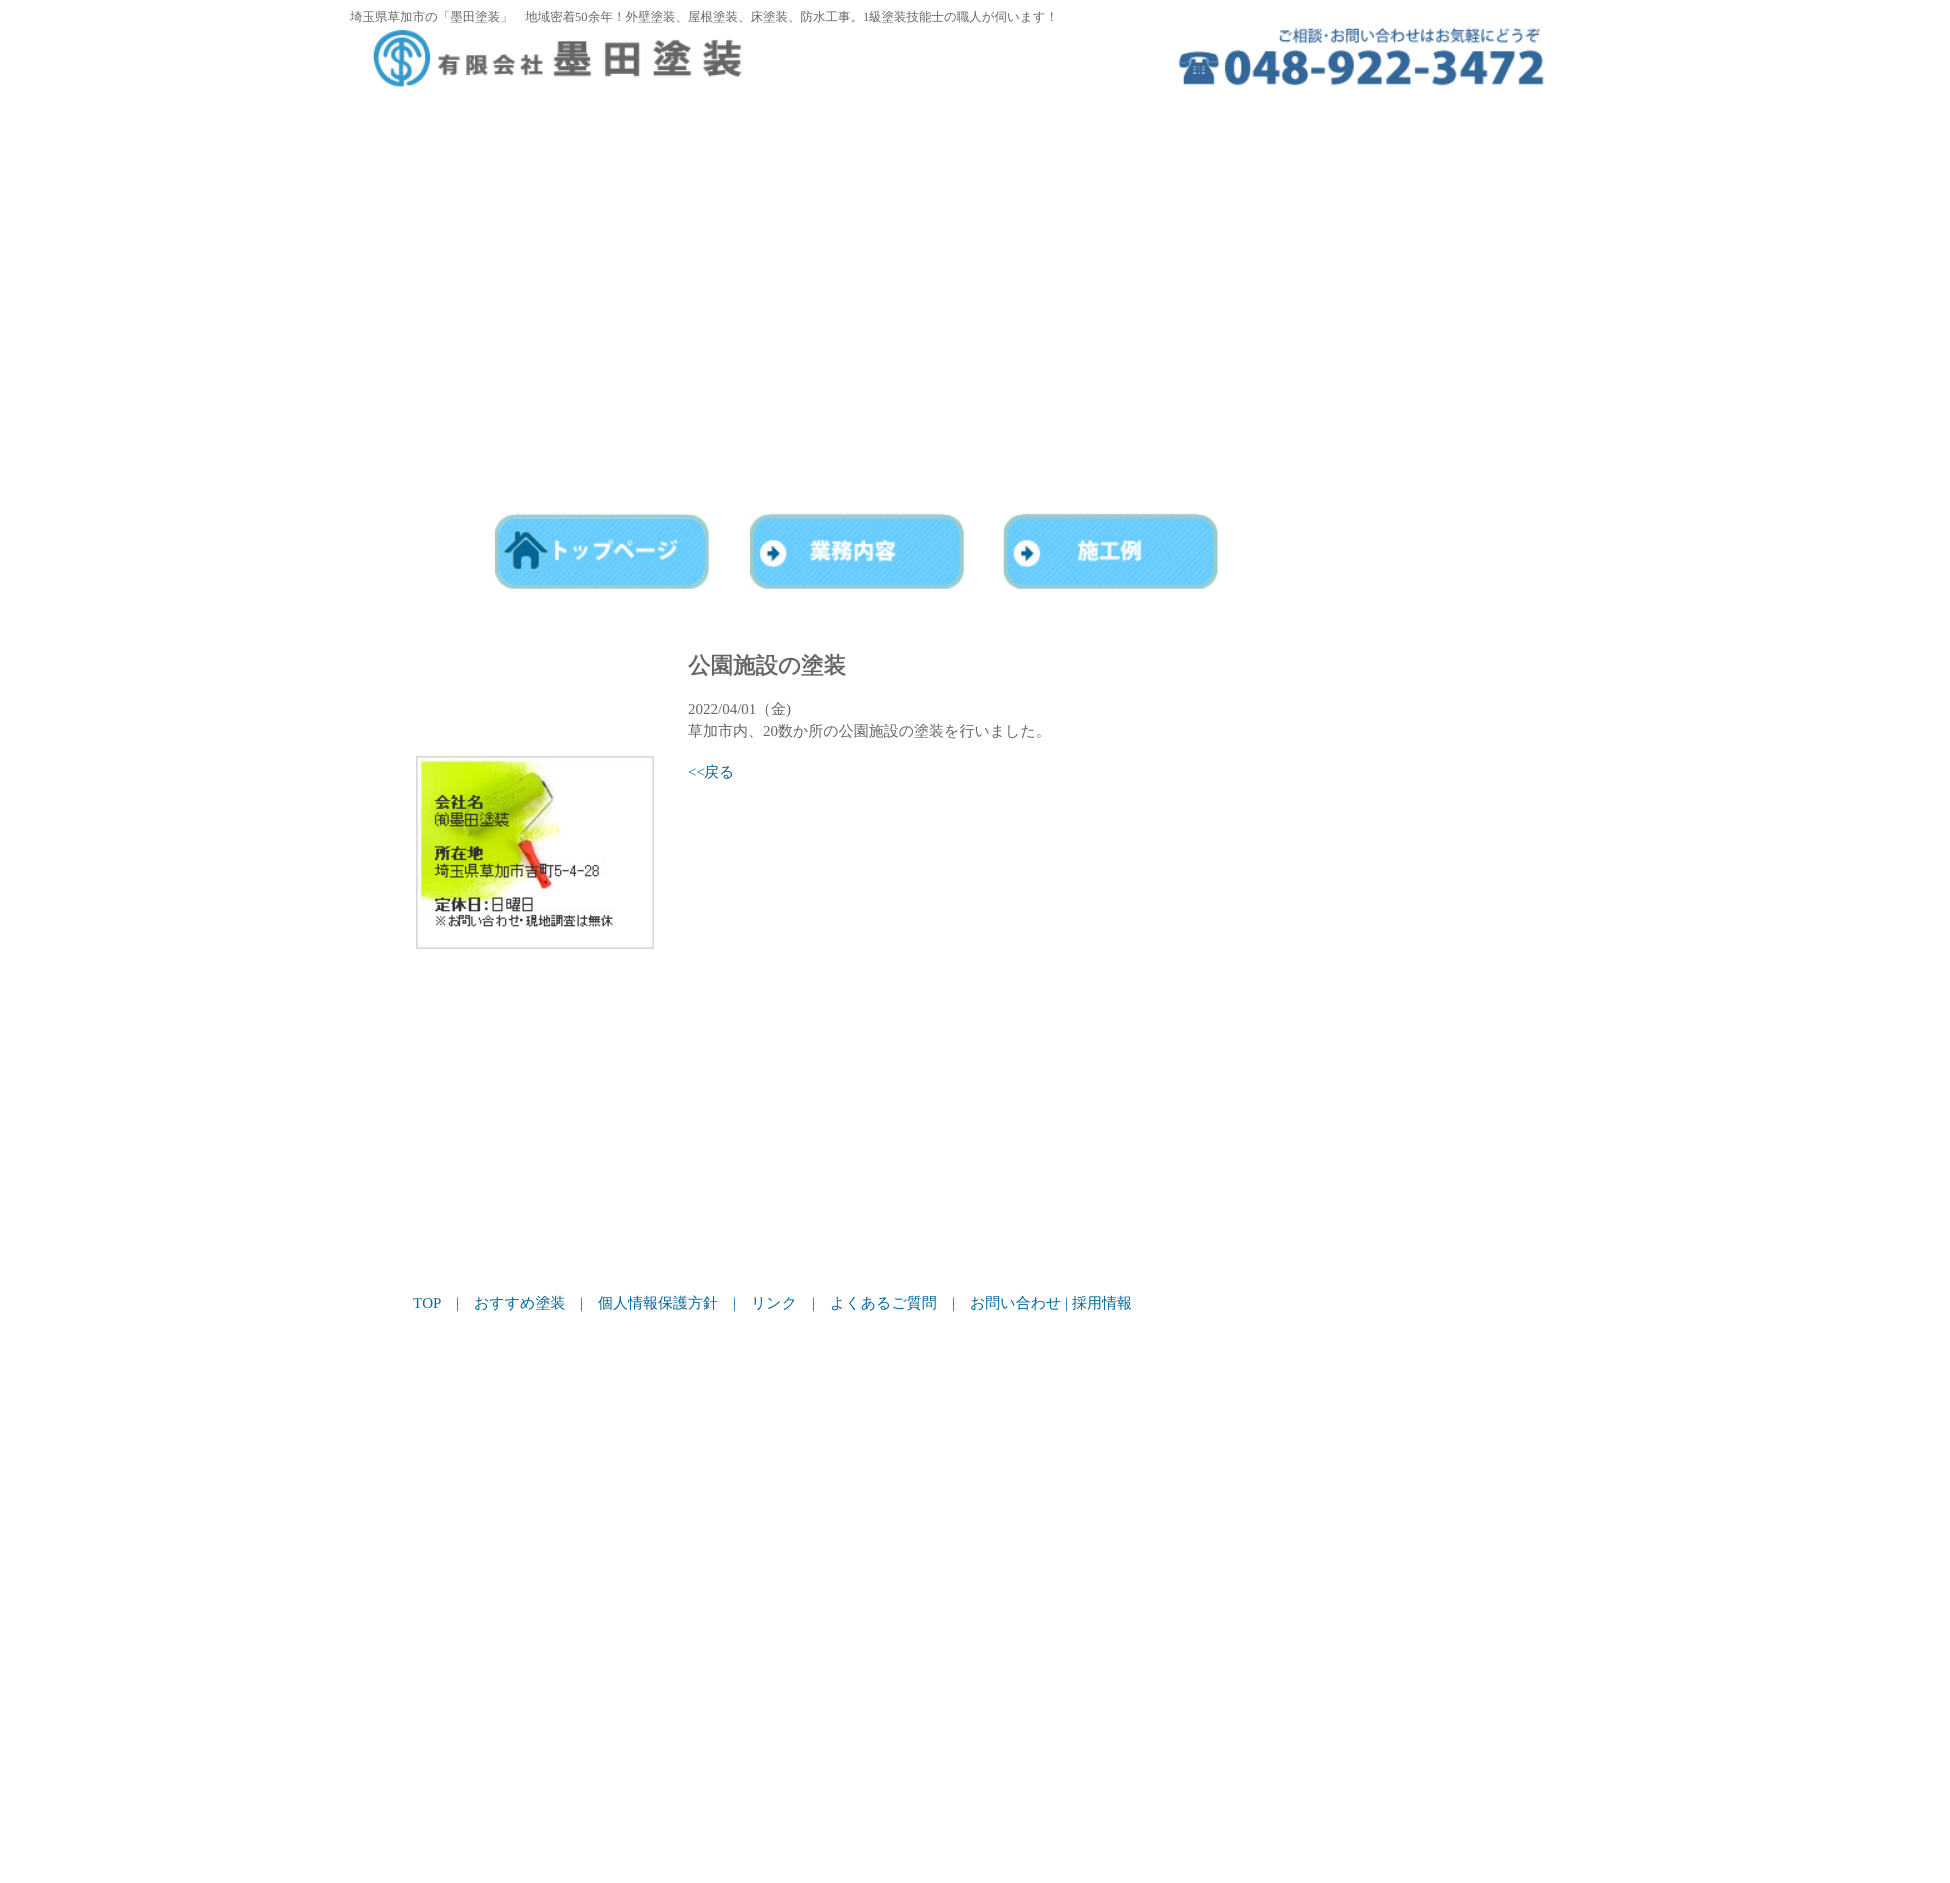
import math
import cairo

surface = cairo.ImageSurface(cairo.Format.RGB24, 1950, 1883)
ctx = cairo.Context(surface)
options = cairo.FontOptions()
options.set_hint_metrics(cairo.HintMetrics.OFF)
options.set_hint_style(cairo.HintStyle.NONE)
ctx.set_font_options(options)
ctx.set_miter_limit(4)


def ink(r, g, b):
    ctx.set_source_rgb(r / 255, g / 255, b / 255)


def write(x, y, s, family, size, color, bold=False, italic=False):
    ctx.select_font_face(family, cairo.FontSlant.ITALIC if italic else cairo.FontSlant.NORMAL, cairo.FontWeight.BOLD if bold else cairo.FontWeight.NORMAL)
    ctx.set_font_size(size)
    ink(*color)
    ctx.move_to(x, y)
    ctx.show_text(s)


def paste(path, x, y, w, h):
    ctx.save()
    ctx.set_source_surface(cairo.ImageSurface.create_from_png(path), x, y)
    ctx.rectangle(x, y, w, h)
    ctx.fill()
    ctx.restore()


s1 = dict(family="WenQuanYi Zen Hei Medium", size=12.5, color=(102, 102, 102))
s2 = dict(family="Liberation Serif", size=12.5, color=(102, 102, 102))
s3 = dict(family="WenQuanYi Zen Hei", size=22.5, color=(102, 102, 102), bold=True)
s4 = dict(family="Liberation Serif", size=15, color=(102, 102, 102))
s5 = dict(family="WenQuanYi Zen Hei Medium", size=15, color=(102, 102, 102))
s6 = dict(family="Liberation Serif", size=15, color=(0, 102, 153))
s7 = dict(family="WenQuanYi Zen Hei Medium", size=15, color=(0, 102, 153))

ink(255, 255, 255)
ctx.paint()
write(350, 21, "埼玉県草加市の「墨田塗装」　地域密着", **s1)
write(575, 21, "50", **s2)
write(588, 21, "余年！外壁塗装、屋根塗装、床塗装、防水工事。", **s1)
write(863, 21, "1", **s2)
write(869, 21, "級塗装技能士の職人が伺います！", **s1)
paste("pic1.png", 373, 27, 1171, 60)
paste("pic2.png", 495, 513, 214, 76)
paste("pic3.png", 750, 513, 214, 76)
paste("pic4.png", 1003, 513, 215, 76)
write(688, 673, "公園施設の塗装", **s3)
write(688, 714, "2022/04/01", **s4)
write(756, 714, "（金", **s5)
write(786, 714, ")", **s4)
write(688, 736, "草加市内、", **s5)
write(763, 736, "20", **s4)
write(778, 736, "数か所の公園施設の塗装を行いました。", **s5)
write(688, 777, "<<", **s6)
write(704, 777, "戻る", **s7)
paste("pic5.png", 416, 756, 238, 193)
write(413, 1308, "TOP", **s6)
write(456, 1308, "|", **s6)
write(474, 1308, "おすすめ塗装", **s7)
write(580, 1308, "|", **s6)
write(598, 1308, "個人情報保護方針", **s7)
write(733, 1308, "|", **s6)
write(751, 1308, "リンク", **s7)
write(812, 1308, "|", **s6)
write(830, 1308, "よくあるご質問", **s7)
write(952, 1308, "|", **s6)
write(970, 1308, "お問い合わせ", **s7)
write(1065, 1308, "|", **s6)
write(1072, 1308, "採用情報", **s7)
surface.write_to_png("screenshot.png")
